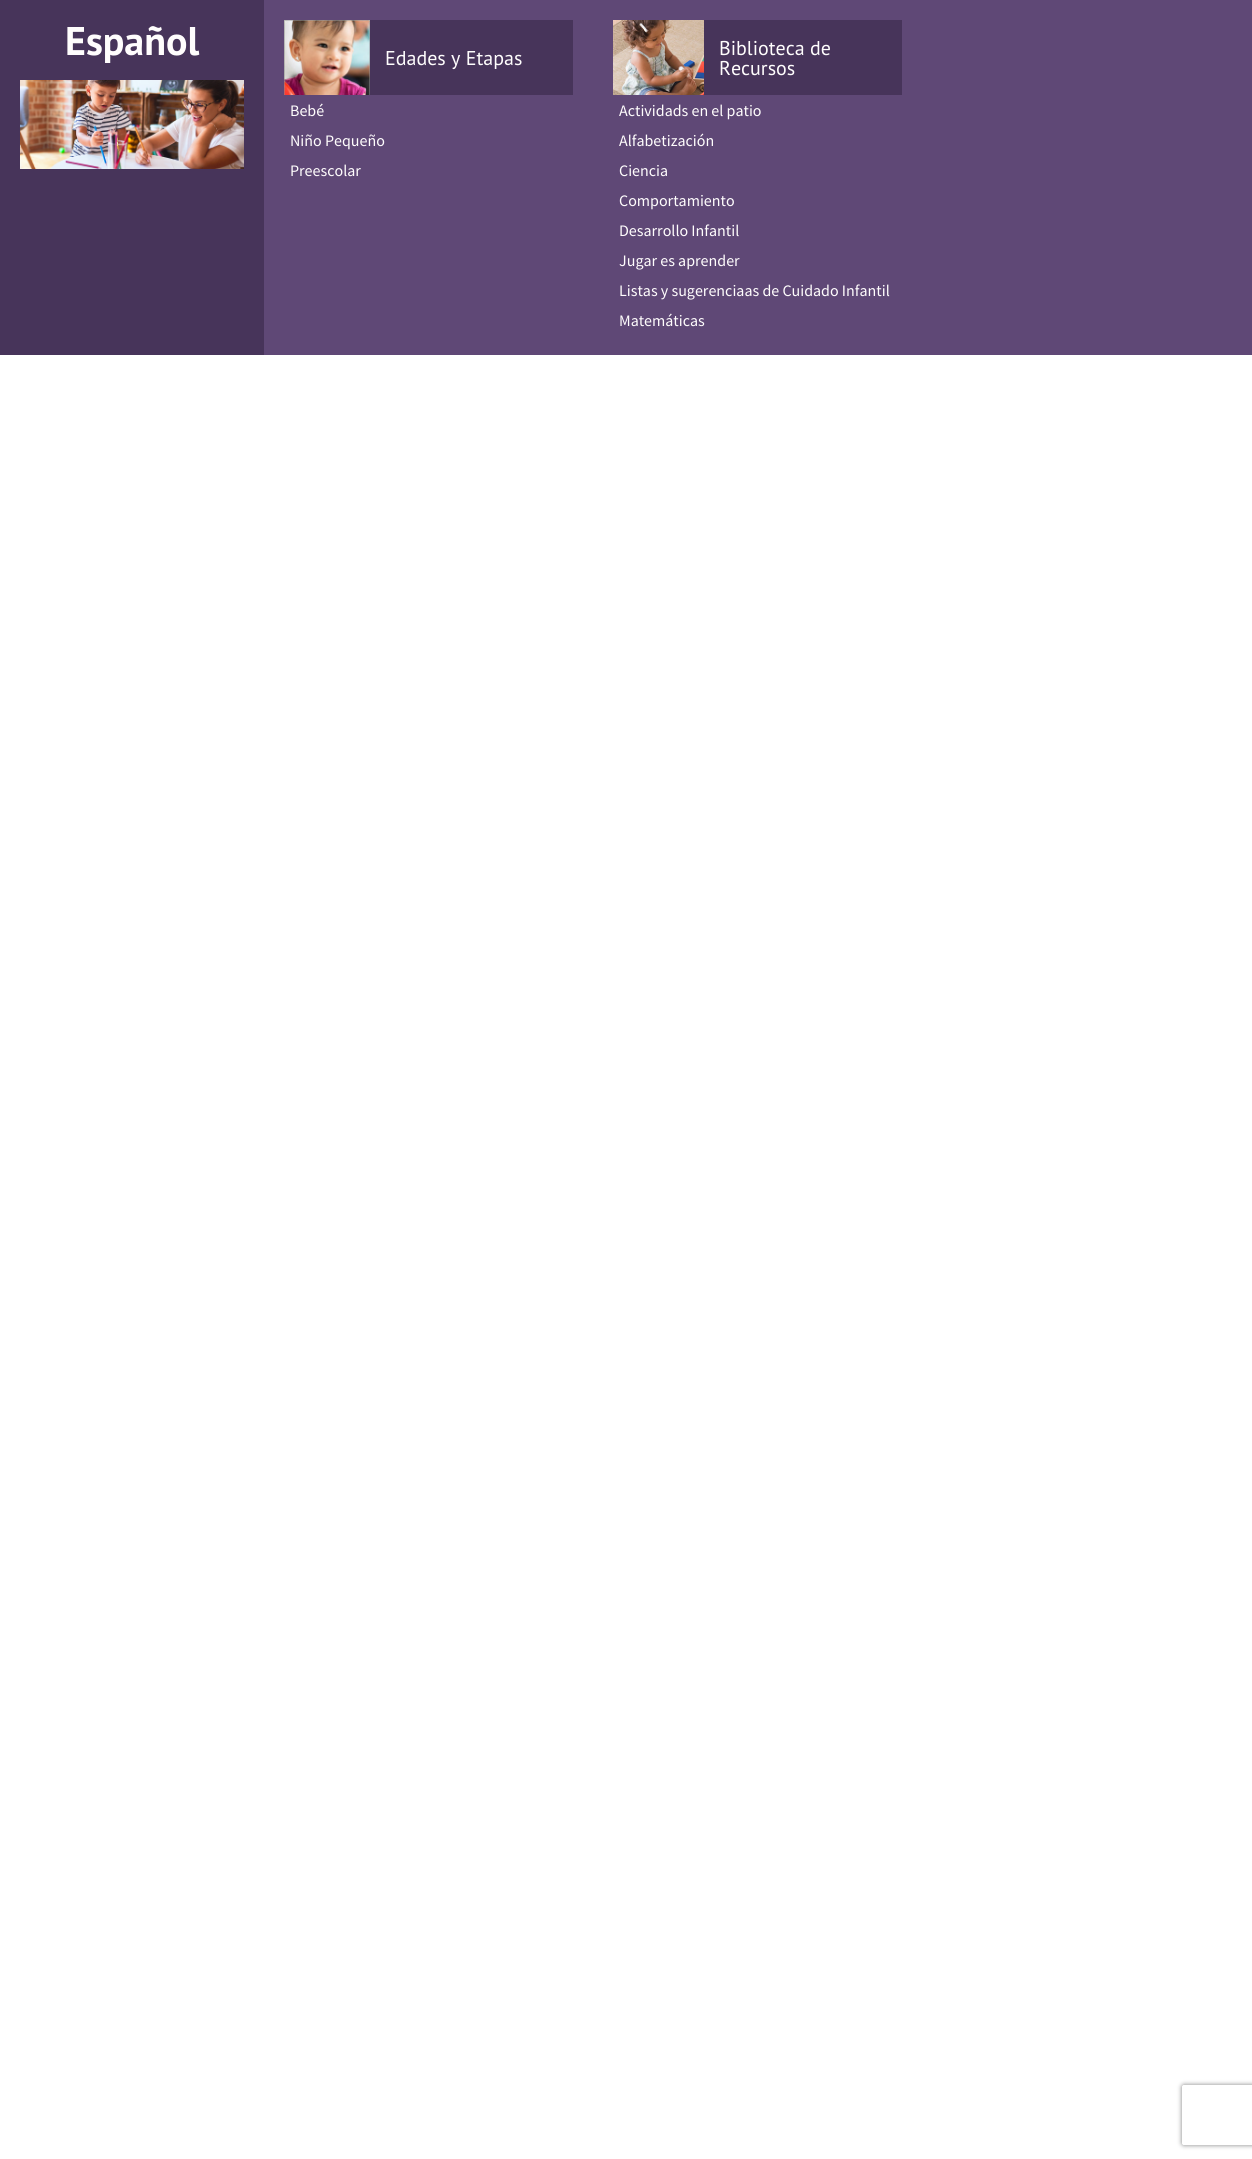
import math
import cairo

surface = cairo.ImageSurface(cairo.Format.RGB24, 1252, 2159)
ctx = cairo.Context(surface)
options = cairo.FontOptions()
options.set_hint_metrics(cairo.HintMetrics.OFF)
options.set_hint_style(cairo.HintStyle.NONE)
ctx.set_font_options(options)
ctx.set_miter_limit(4)


def ink(r, g, b):
    ctx.set_source_rgb(r / 255, g / 255, b / 255)


def write(x, y, s, family, size, color, bold=False, italic=False):
    ctx.select_font_face(family, cairo.FontSlant.ITALIC if italic else cairo.FontSlant.NORMAL, cairo.FontWeight.BOLD if bold else cairo.FontWeight.NORMAL)
    ctx.set_font_size(size)
    ink(*color)
    ctx.move_to(x, y)
    ctx.show_text(s)


def block(x, y, w, h, *color):
    ink(*color)
    ctx.rectangle(x, y, w, h)
    ctx.fill()


def round_path(x, y, w, h, r):
    ctx.new_sub_path()
    for i, (u, v) in enumerate([(x + w - r, y + h - r), (x + r, y + h - r), (x + r, y + r), (x + w - r, y + r)]):
        ctx.arc(u, v, r, i * math.pi / 2, (i + 1) * math.pi / 2)
    ctx.close_path()


def blur_box(x, y, w, h, r, blur, alpha):
    ctx.push_group_with_content(cairo.Content.ALPHA)
    ctx.set_operator(cairo.Operator.SOURCE)
    for i in range(15, -16, -2):
        e = blur * i / 6
        if min(w, h) + 2 * e > 0:
            ctx.set_source_rgba(0, 0, 0, alpha * math.erfc((i - 1) / 8.5) / 2)
            round_path(x - e, y - e, w + 2 * e, h + 2 * e, max(0, min(r + e + blur * .6, min(w, h) / 2 + e)))
            ctx.fill()
    ctx.mask(ctx.pop_group())


def paste(path, x, y, w, h):
    ctx.save()
    ctx.set_source_surface(cairo.ImageSurface.create_from_png(path), x, y)
    ctx.rectangle(x, y, w, h)
    ctx.fill()
    ctx.restore()


s1 = dict(family="PT Sans", size=40, color=(255, 253, 253), bold=True)
s2 = dict(family="PT Sans", size=20, color=(255, 253, 253))
s3 = dict(family="Source Sans Pro", size=16, color=(255, 253, 253))

ink(255, 255, 255)
ctx.paint()
block(264, 0, 988, 355, 95, 72, 118)
block(0, 0, 264, 355, 71, 52, 90)
write(65, 55, "Español", **s1)
paste("pic1.png", 20, 80, 224, 89)
block(370, 20, 203, 75, 71, 52, 90)
paste("pic2.png", 284, 20, 86, 75)
write(385, 65, "Edades y Etapas", **s2)
write(290, 116, "Bebé", **s3)
write(290, 146, "Niño Pequeño", **s3)
write(290, 176, "Preescolar", **s3)
block(704, 20, 198, 75, 71, 52, 90)
paste("pic3.png", 613, 20, 91, 75)
write(719, 55, "Biblioteca de", **s2)
write(719, 75, "Recursos", **s2)
write(619, 116, "Actividads en el patio", **s3)
write(619, 146, "Alfabetización", **s3)
write(619, 176, "Ciencia", **s3)
write(619, 206, "Comportamiento", **s3)
write(619, 236, "Desarrollo Infantil", **s3)
write(619, 266, "Jugar es aprender", **s3)
write(619, 296, "Listas y sugerenciaas de Cuidado Infantil", **s3)
write(619, 326, "Matemáticas", **s3)
ctx.save()
ctx.set_fill_rule(cairo.FillRule.EVEN_ODD)
ctx.new_path()
ctx.move_to(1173, 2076)
ctx.line_to(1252, 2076)
ctx.line_to(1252, 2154)
ctx.line_to(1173, 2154)
ctx.close_path()
ctx.move_to(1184, 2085)
ctx.line_to(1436, 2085)
ctx.curve_to(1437, 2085, 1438, 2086, 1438, 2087)
ctx.line_to(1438, 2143)
ctx.curve_to(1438, 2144, 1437, 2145, 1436, 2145)
ctx.line_to(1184, 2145)
ctx.curve_to(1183, 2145, 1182, 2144, 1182, 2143)
ctx.line_to(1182, 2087)
ctx.curve_to(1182, 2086, 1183, 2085, 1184, 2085)
ctx.close_path()
ctx.clip()
ink(128, 128, 128)
blur_box(1182, 2085, 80, 60, 2, 2.5, 1)
ctx.restore()
surface.write_to_png("screenshot.png")
